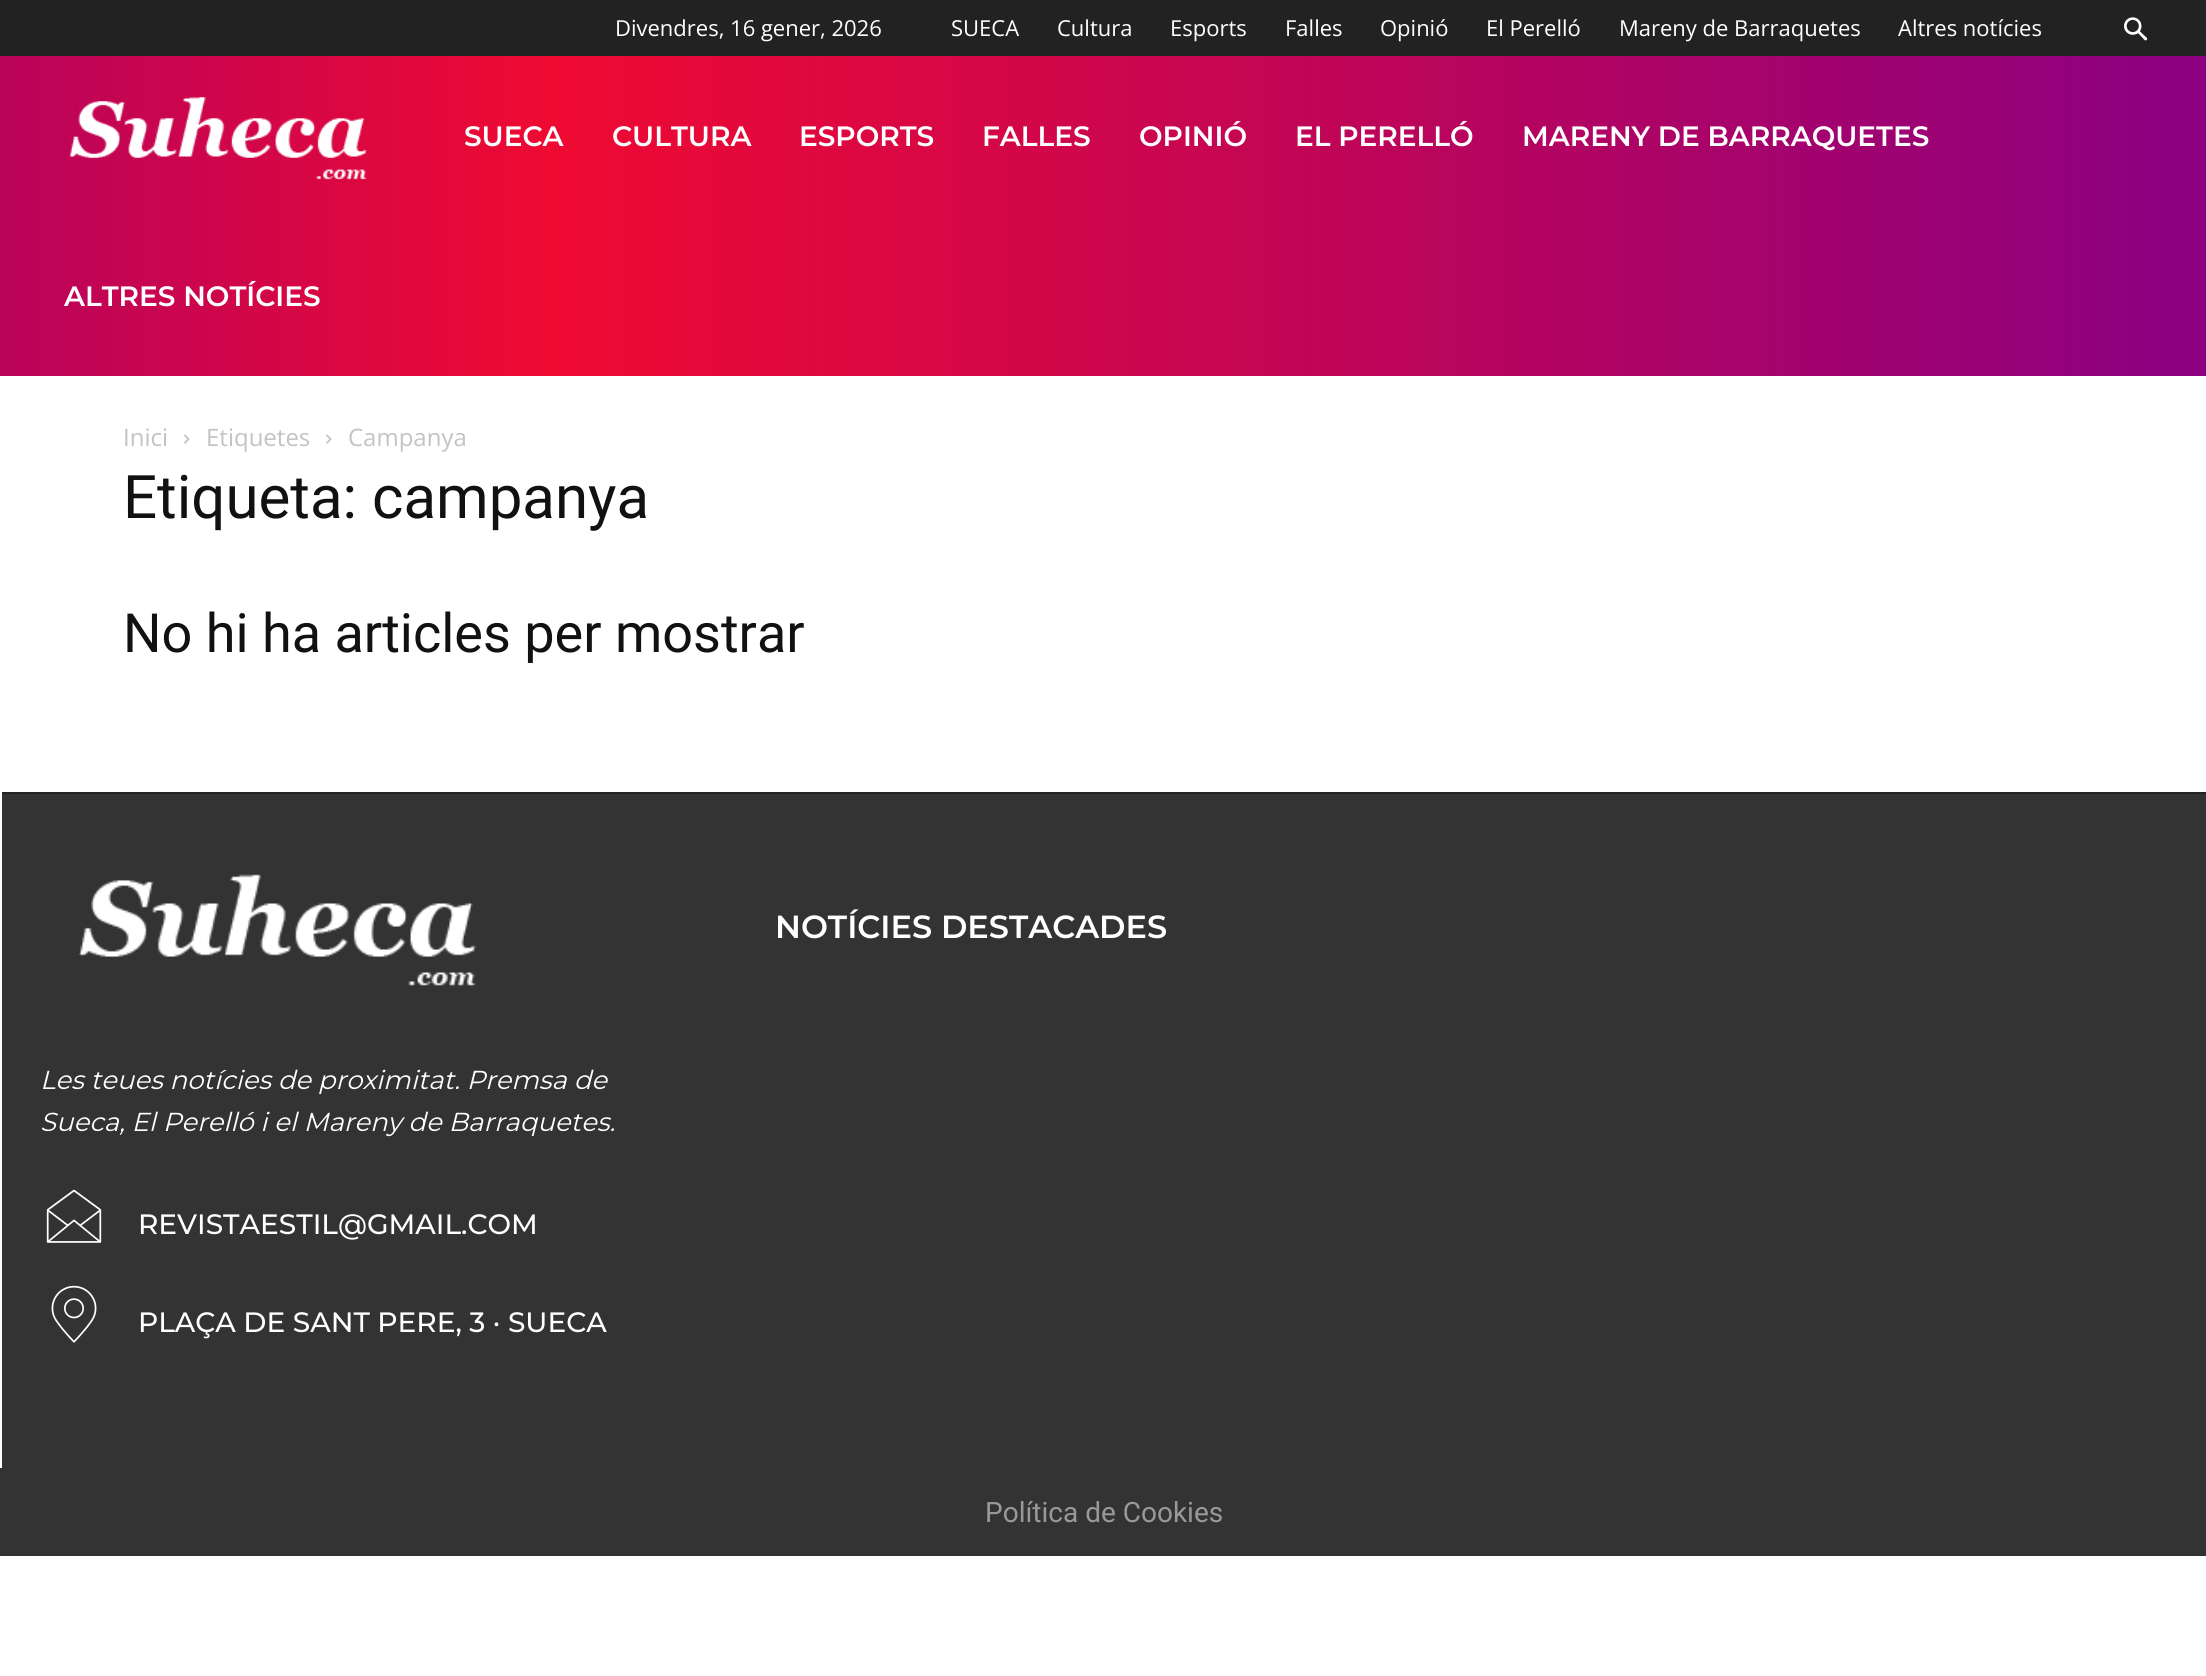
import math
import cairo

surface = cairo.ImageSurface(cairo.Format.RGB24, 2206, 1676)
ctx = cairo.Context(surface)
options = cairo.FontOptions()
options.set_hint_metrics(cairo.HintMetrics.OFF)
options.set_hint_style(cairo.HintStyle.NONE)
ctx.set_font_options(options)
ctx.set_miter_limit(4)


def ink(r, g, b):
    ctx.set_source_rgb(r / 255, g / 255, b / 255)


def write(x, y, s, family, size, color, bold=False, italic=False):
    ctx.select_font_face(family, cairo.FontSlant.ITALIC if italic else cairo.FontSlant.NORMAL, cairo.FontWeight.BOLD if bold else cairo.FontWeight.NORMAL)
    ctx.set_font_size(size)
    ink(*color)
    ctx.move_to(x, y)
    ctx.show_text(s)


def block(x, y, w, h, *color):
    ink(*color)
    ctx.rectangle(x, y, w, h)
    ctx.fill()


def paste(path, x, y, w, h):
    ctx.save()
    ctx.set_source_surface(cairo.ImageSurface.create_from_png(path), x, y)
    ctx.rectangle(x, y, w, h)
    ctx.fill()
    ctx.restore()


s1 = dict(family="Open Sans", size=22, color=(255, 255, 255))
s2 = dict(family="Montserrat SemiBold", size=28, color=(255, 255, 255))
s3 = dict(family="Open Sans", size=24, color=(195, 195, 195))
s4 = dict(family="Roboto", size=60, color=(17, 17, 17))
s5 = dict(family="Roboto", size=54, color=(17, 17, 17))
s6 = dict(family="Montserrat SemiBold", size=32, color=(255, 255, 255))
s7 = dict(family="Montserrat", size=26, color=(255, 255, 255), italic=True)
s8 = dict(family="Montserrat Medium", size=28, color=(255, 255, 255))
s9 = dict(family="Roboto", size=28, color=(153, 153, 153))

ink(255, 255, 255)
ctx.paint()
block(2, 794, 2204, 674, 51, 51, 51)
block(0, 0, 2206, 56, 34, 34, 34)
write(615, 36, "Divendres, 16 gener, 2026", **s1)
write(951, 36, "SUECA", **s1)
write(1057, 36, "Cultura", **s1)
write(1170, 36, "Esports", **s1)
write(1285, 36, "Falles", **s1)
write(1380, 36, "Opinió", **s1)
write(1486, 36, "El Perelló", **s1)
write(1619, 36, "Mareny de Barraquetes", **s1)
write(1898, 36, "Altres notícies", **s1)
paste("pic1.png", 2124, 17, 24, 24)
gradient = cairo.LinearGradient(0, 216, 2206, 216)
gradient.add_color_stop_rgba(0, 0.725, 0.012, 0.357, 1)
gradient.add_color_stop_rgba(0.25, 0.937, 0.039, 0.196, 1)
gradient.add_color_stop_rgba(1, 0.545, 0, 0.506, 1)
ctx.set_source(gradient)
ctx.rectangle(0, 56, 2206, 320)
ctx.fill()
paste("pic2.png", 69, 97, 298, 83)
write(464, 146, "SUECA", **s2)
write(612, 146, "CULTURA", **s2)
write(799, 146, "ESPORTS", **s2)
write(982, 146, "FALLES", **s2)
write(1139, 146, "OPINIÓ", **s2)
write(1295, 146, "EL PERELLÓ", **s2)
write(1522, 146, "MARENY DE BARRAQUETES", **s2)
write(64, 306, "ALTRES NOTÍCIES", **s2)
write(123, 446, "Inici", **s3)
paste("pic3.png", 184, 434, 6, 10)
write(206, 446, "Etiquetes", **s3)
paste("pic3.png", 326, 434, 6, 10)
write(348, 446, "Campanya", **s3)
write(123, 518, "Etiqueta: campanya", **s4)
write(123, 652, "No hi ha articles per mostrar", **s5)
block(2, 792, 2204, 2, 34, 34, 34)
write(775, 938, "NOTÍCIES DESTACADES", **s6)
paste("pic4.png", 78, 874, 399, 112)
write(40, 1089, "Les teues notícies de proximitat. Premsa de", **s7)
write(40, 1131, "Sueca, El Perelló i el Mareny de Barraquetes.", **s7)
paste("pic5.png", 46, 1189, 56, 54)
write(138, 1234, "REVISTAESTIL@GMAIL.COM", **s8)
paste("pic6.png", 51, 1285, 46, 58)
write(138, 1332, "PLAÇA DE SANT PERE, 3 · SUECA", **s8)
block(0, 1468, 2206, 88, 51, 51, 51)
write(985, 1522, "Política de Cookies", **s9)
surface.write_to_png("screenshot.png")
